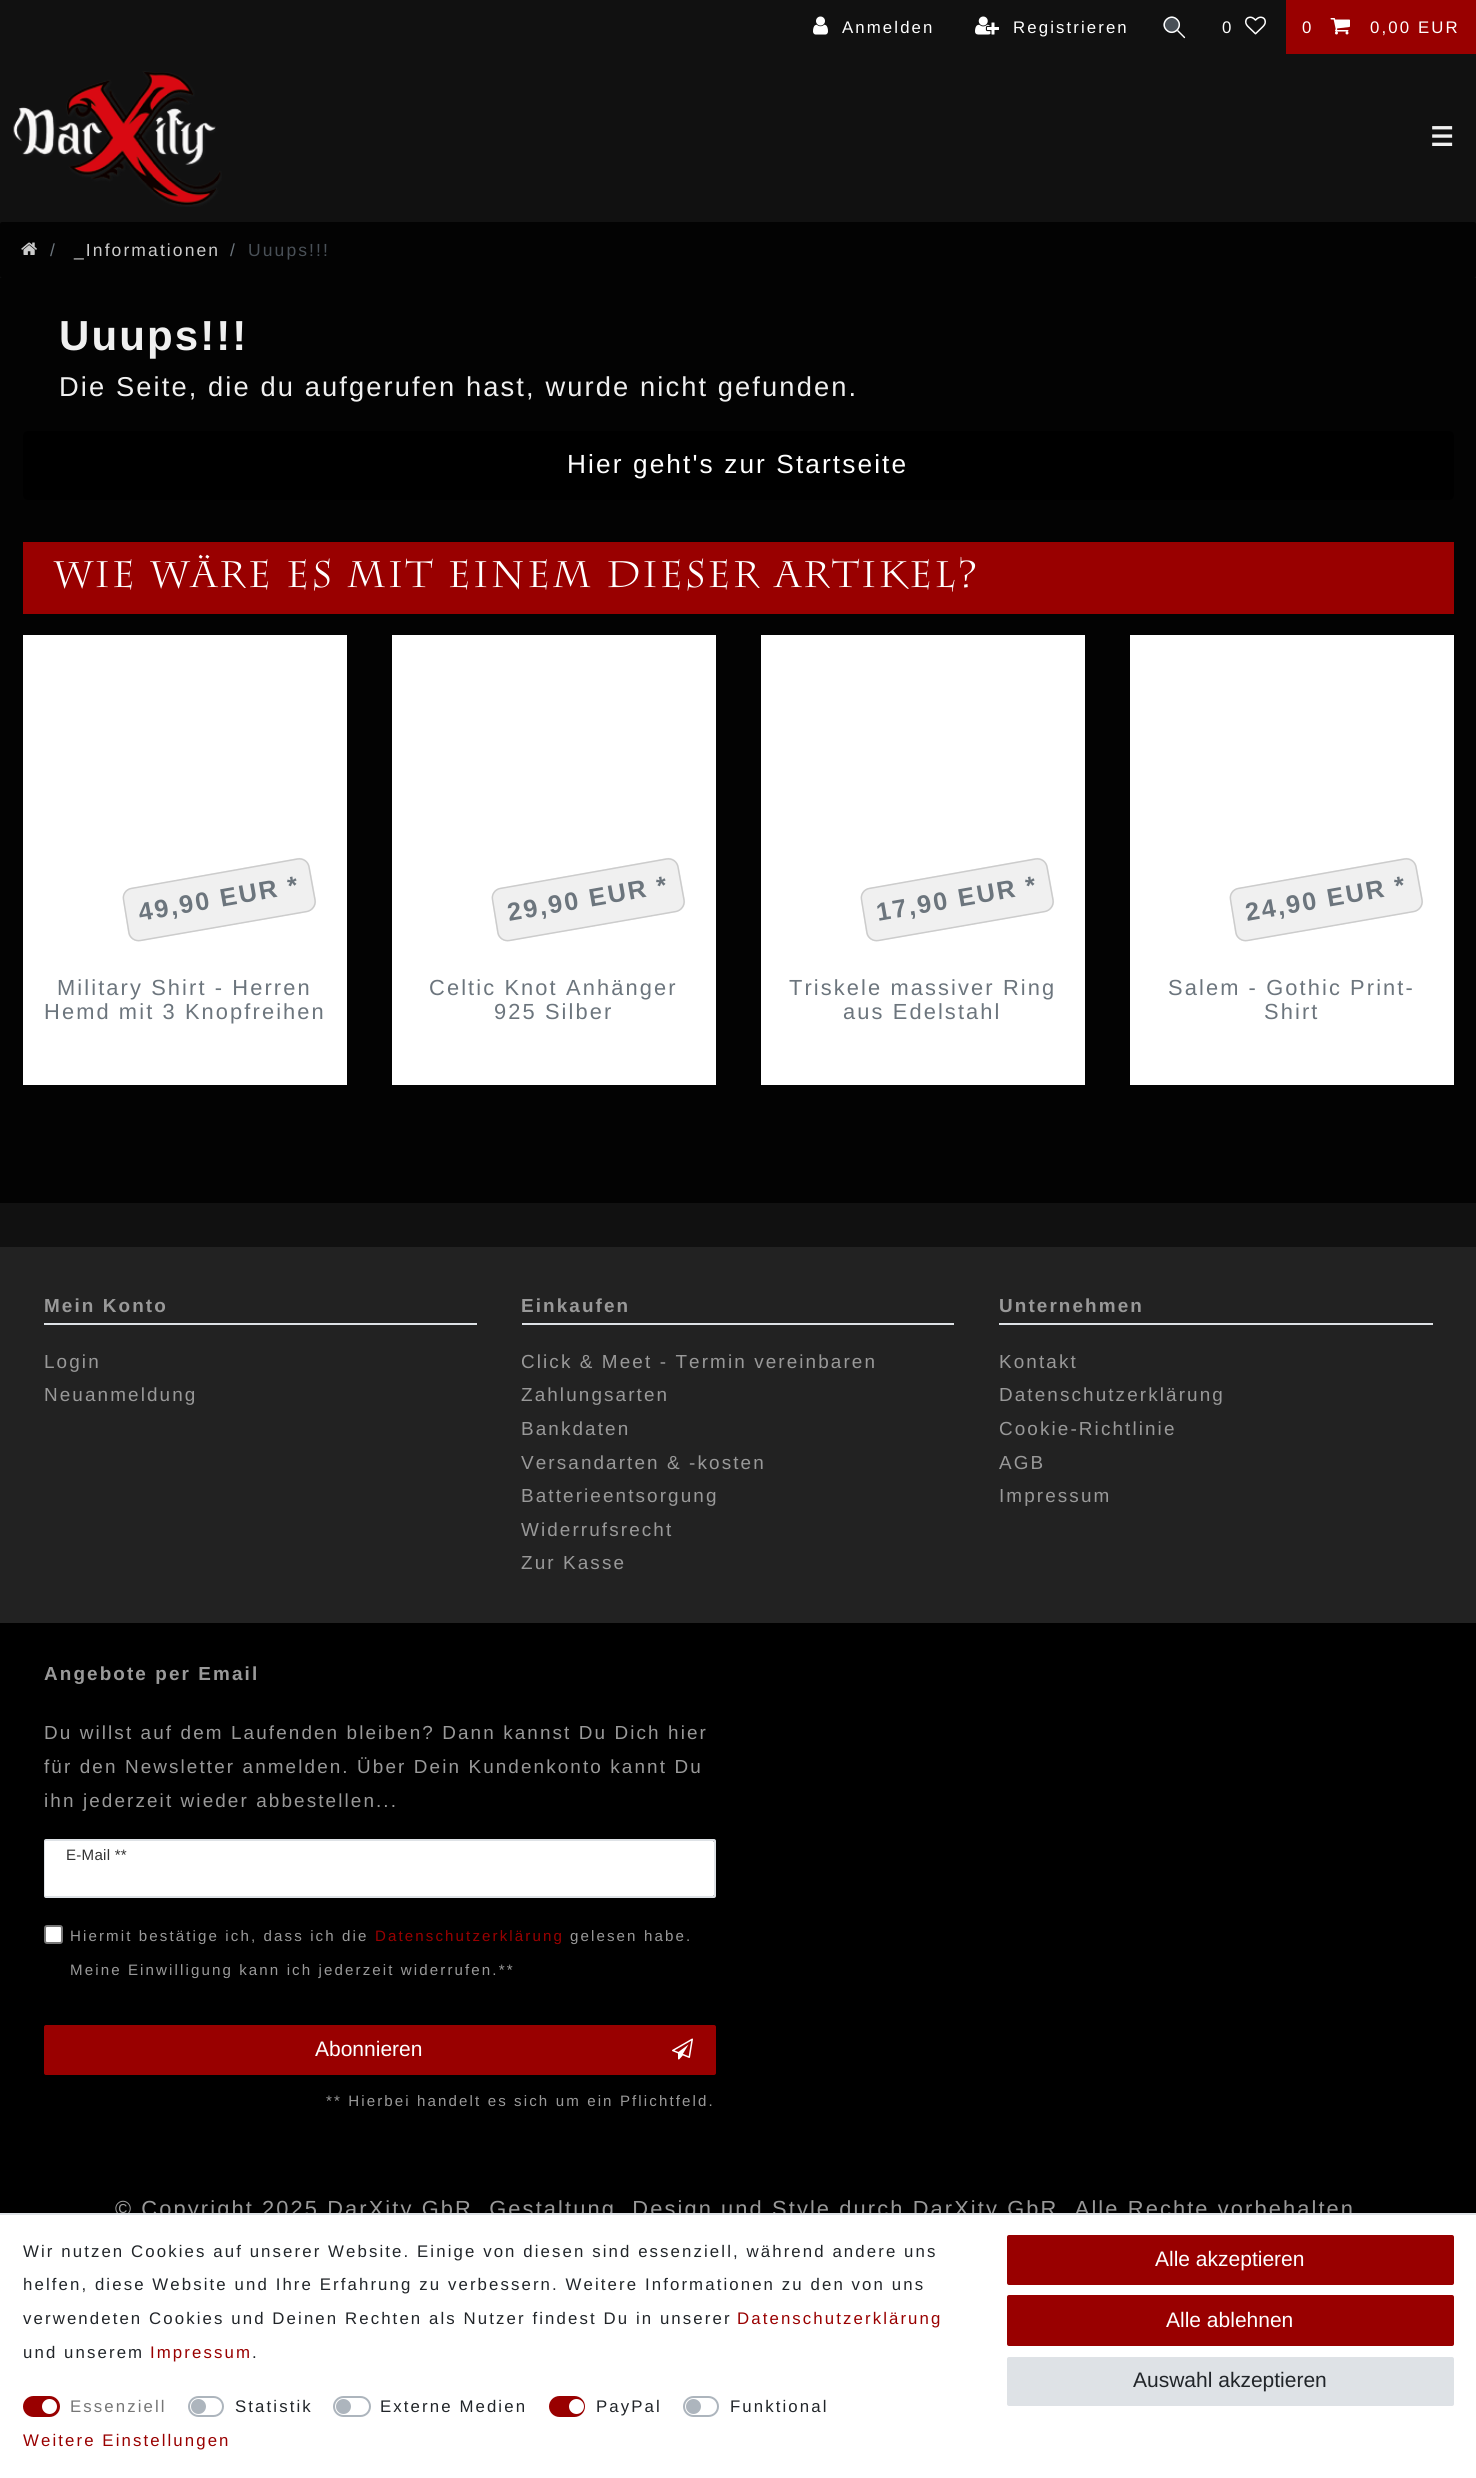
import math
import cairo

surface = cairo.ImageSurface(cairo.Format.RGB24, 1476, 2478)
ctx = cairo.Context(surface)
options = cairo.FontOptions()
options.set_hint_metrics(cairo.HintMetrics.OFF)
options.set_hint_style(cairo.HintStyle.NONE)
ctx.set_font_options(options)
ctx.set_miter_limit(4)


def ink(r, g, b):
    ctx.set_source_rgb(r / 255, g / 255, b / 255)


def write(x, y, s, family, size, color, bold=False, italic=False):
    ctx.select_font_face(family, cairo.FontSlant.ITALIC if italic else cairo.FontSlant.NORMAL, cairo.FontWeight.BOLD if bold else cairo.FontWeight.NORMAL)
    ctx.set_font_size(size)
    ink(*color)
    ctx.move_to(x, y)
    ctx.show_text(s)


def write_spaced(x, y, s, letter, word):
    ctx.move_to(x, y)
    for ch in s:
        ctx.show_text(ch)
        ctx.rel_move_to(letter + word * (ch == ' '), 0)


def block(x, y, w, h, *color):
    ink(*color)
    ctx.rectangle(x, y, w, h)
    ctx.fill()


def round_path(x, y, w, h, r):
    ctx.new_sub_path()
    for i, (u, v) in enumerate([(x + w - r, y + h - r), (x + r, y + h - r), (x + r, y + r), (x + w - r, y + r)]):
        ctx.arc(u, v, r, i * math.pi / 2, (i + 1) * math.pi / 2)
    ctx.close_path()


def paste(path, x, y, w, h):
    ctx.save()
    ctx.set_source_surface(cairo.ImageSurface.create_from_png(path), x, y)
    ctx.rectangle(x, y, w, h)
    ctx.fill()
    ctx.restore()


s1 = dict(family="DejaVu Sans", size=26.25, color=(240, 240, 240), bold=True)
s2 = dict(family="Liberation Sans", size=21, color=(255, 255, 255))
s3 = dict(family="Liberation Sans", size=21, color=(33, 37, 41))

ink(17, 17, 17)
ctx.paint()
paste("pic1.png", 813, 16, 15, 19)
ctx.select_font_face("Liberation Sans")
ctx.set_font_size(16.8)
ink(255, 255, 255)
write_spaced(842, 33, "Anmelden", 2.1, 0)
paste("pic2.png", 975, 16, 24, 19)
write_spaced(1013, 33, "Registrieren", 2.1, 0)
ctx.new_path()
ctx.move_to(1184, 38)
ctx.line_to(1169, 23)
ctx.line_to(1169, 22.5)
ctx.curve_to(1169, 22, 1169.5, 22, 1170, 22)
ctx.line_to(1185, 37)
ctx.curve_to(1185.5, 38, 1184.5, 38.5, 1184, 38)
ctx.close_path()
ctx.fill()
ink(73, 80, 87)
ctx.new_path()
ctx.move_to(1166, 30.5)
ctx.curve_to(1158, 23, 1170, 11.5, 1177.5, 19)
ctx.curve_to(1185, 26.5, 1173.5, 38.5, 1166, 30.5)
ctx.close_path()
ctx.fill()
ctx.new_path()
ctx.move_to(1166.5, 30)
ctx.curve_to(1159.5, 23, 1170, 12.5, 1177, 19.5)
ctx.curve_to(1184, 26.5, 1173.5, 37, 1166.5, 30)
ctx.close_path()
ink(255, 255, 255)
ctx.set_line_width(1.5)
ctx.stroke()
write_spaced(1222, 33, "0", 2.1, 0)
paste("pic3.png", 1245, 16, 21, 19)
block(1286, 0, 190, 54, 153, 0, 0)
ink(255, 255, 255)
write_spaced(1302, 33, "0", 2.1, 0)
paste("pic4.png", 1330, 18, 20, 17)
write_spaced(1370, 33, "0,00 EUR", 2.1, 0)
paste("pic5.png", 13, 71, 209, 136)
write(1430, 146, "☰", **s1)
ink(3, 3, 3)
round_path(0, 222, 1476, 56, 2)
ctx.fill()
paste("pic6.png", 21, 242, 16, 13)
ctx.select_font_face("Liberation Sans")
ctx.set_font_size(17.5)
ink(108, 117, 125)
write_spaced(50, 256, "/", 2.1, 0)
ink(204, 204, 204)
write_spaced(74, 256, "_Informationen", 2.1, 0)
ink(108, 117, 125)
write_spaced(230, 256, "/", 2.1, 0)
ink(73, 80, 87)
write_spaced(248, 256, "Uuups!!!", 2.1, 0)
block(0, 278, 1476, 925, 3, 3, 3)
ctx.select_font_face("Liberation Sans", cairo.FontSlant.NORMAL, cairo.FontWeight.BOLD)
ctx.set_font_size(42)
ink(240, 240, 240)
write_spaced(59, 350, "Uuups!!!", 2.1, 0)
ctx.select_font_face("Liberation Sans")
ctx.set_font_size(27.3)
write_spaced(59, 396, "Die Seite, die du aufgerufen hast, wurde nicht gefunden.", 2.1, 0)
ink(0, 0, 0)
round_path(23, 431, 1431, 69, 5)
ctx.fill()
ctx.set_font_size(26.25)
ink(255, 255, 255)
write_spaced(567, 473, "Hier geht's zur Startseite", 2.1, 0)
block(23, 542, 1431, 72, 153, 0, 0)
ctx.select_font_face("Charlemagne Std")
ctx.set_font_size(36.75)
ink(255, 255, 255)
write_spaced(54, 587, "Wie wäre es mit einem dieser Artikel?", 2.1, 0)
block(23, 635, 324, 450, 255, 255, 255)
ink(240, 240, 240)
ctx.new_path()
ctx.move_to(131, 888)
ctx.line_to(298, 858)
ctx.curve_to(303, 857, 309, 861, 310, 867)
ctx.line_to(316, 900)
ctx.curve_to(317, 906, 313, 911, 307, 912)
ctx.line_to(141, 941)
ctx.curve_to(135, 942, 129, 939, 128, 933)
ctx.line_to(123, 900)
ctx.curve_to(122, 894, 125, 889, 131, 888)
ctx.close_path()
ctx.fill()
ctx.new_path()
ctx.move_to(131, 888.5)
ctx.line_to(297.5, 859)
ctx.curve_to(303, 858, 308, 861.5, 309, 867)
ctx.line_to(315, 900)
ctx.curve_to(316, 905.5, 312, 910.5, 307, 911.5)
ctx.line_to(140.5, 940.5)
ctx.curve_to(135, 941.5, 130, 938, 129, 933)
ctx.line_to(123.5, 899.5)
ctx.curve_to(122.5, 894.5, 126, 889.5, 131, 888.5)
ctx.close_path()
ink(204, 204, 204)
ctx.stroke()
ctx.select_font_face("Liberation Sans", cairo.FontSlant.NORMAL, cairo.FontWeight.BOLD)
ctx.set_font_size(25.25)
ink(108, 117, 125)
ctx.save()
ctx.translate(140, 921)
ctx.rotate(-10 * math.pi / 180)
write_spaced(0, 0, "49,90 EUR *", 2.1, 0)
ctx.restore()
ctx.select_font_face("Liberation Sans")
ctx.set_font_size(21.85)
write_spaced(57, 995, "Military Shirt - Herren", 2.1, 0)
write_spaced(44, 1019, "Hemd mit 3 Knopfreihen", 2.1, 0)
block(392, 635, 324, 450, 255, 255, 255)
ink(240, 240, 240)
ctx.new_path()
ctx.move_to(500, 888)
ctx.line_to(667, 858)
ctx.curve_to(672, 857, 678, 861, 679, 867)
ctx.line_to(685, 900)
ctx.curve_to(686, 906, 682, 911, 676, 912)
ctx.line_to(510, 941)
ctx.curve_to(504, 942, 498, 939, 497, 933)
ctx.line_to(492, 900)
ctx.curve_to(491, 894, 494, 889, 500, 888)
ctx.close_path()
ctx.fill()
ctx.new_path()
ctx.move_to(500, 888.5)
ctx.line_to(666.5, 859)
ctx.curve_to(672, 858, 677, 861.5, 678, 867)
ctx.line_to(684, 900)
ctx.curve_to(685, 905.5, 681, 910.5, 676, 911.5)
ctx.line_to(509.5, 940.5)
ctx.curve_to(504, 941.5, 499, 938, 498, 933)
ctx.line_to(492.5, 899.5)
ctx.curve_to(491.5, 894.5, 495, 889.5, 500, 888.5)
ctx.close_path()
ink(204, 204, 204)
ctx.stroke()
ctx.select_font_face("Liberation Sans", cairo.FontSlant.NORMAL, cairo.FontWeight.BOLD)
ctx.set_font_size(25.25)
ink(108, 117, 125)
ctx.save()
ctx.translate(509, 921)
ctx.rotate(-10 * math.pi / 180)
write_spaced(0, 0, "29,90 EUR *", 2.1, 0)
ctx.restore()
ctx.select_font_face("Liberation Sans")
ctx.set_font_size(21.85)
write_spaced(429, 995, "Celtic Knot Anhänger", 2.1, 0)
write_spaced(494, 1019, "925 Silber", 2.1, 0)
block(761, 635, 324, 450, 255, 255, 255)
ink(240, 240, 240)
ctx.new_path()
ctx.move_to(869, 888)
ctx.line_to(1036, 858)
ctx.curve_to(1041, 857, 1047, 861, 1048, 867)
ctx.line_to(1054, 900)
ctx.curve_to(1055, 906, 1051, 911, 1045, 912)
ctx.line_to(879, 941)
ctx.curve_to(873, 942, 867, 939, 866, 933)
ctx.line_to(861, 900)
ctx.curve_to(860, 894, 863, 889, 869, 888)
ctx.close_path()
ctx.fill()
ctx.new_path()
ctx.move_to(869, 888.5)
ctx.line_to(1035.5, 859)
ctx.curve_to(1041, 858, 1046, 861.5, 1047, 867)
ctx.line_to(1053, 900)
ctx.curve_to(1054, 905.5, 1050, 910.5, 1045, 911.5)
ctx.line_to(878.5, 940.5)
ctx.curve_to(873, 941.5, 868, 938, 867, 933)
ctx.line_to(861.5, 899.5)
ctx.curve_to(860.5, 894.5, 864, 889.5, 869, 888.5)
ctx.close_path()
ink(204, 204, 204)
ctx.stroke()
ctx.select_font_face("Liberation Sans", cairo.FontSlant.NORMAL, cairo.FontWeight.BOLD)
ctx.set_font_size(25.25)
ink(108, 117, 125)
ctx.save()
ctx.translate(878, 921)
ctx.rotate(-10 * math.pi / 180)
write_spaced(0, 0, "17,90 EUR *", 2.1, 0)
ctx.restore()
ctx.select_font_face("Liberation Sans")
ctx.set_font_size(21.85)
write_spaced(789, 995, "Triskele massiver Ring", 2.1, 0)
write_spaced(843, 1019, "aus Edelstahl", 2.1, 0)
block(1130, 635, 324, 450, 255, 255, 255)
ink(240, 240, 240)
ctx.new_path()
ctx.move_to(1238, 888)
ctx.line_to(1405, 858)
ctx.curve_to(1410, 857, 1416, 861, 1417, 867)
ctx.line_to(1423, 900)
ctx.curve_to(1424, 906, 1420, 911, 1414, 912)
ctx.line_to(1248, 941)
ctx.curve_to(1242, 942, 1236, 939, 1235, 933)
ctx.line_to(1230, 900)
ctx.curve_to(1229, 894, 1232, 889, 1238, 888)
ctx.close_path()
ctx.fill()
ctx.new_path()
ctx.move_to(1238, 888.5)
ctx.line_to(1404.5, 859)
ctx.curve_to(1410, 858, 1415, 861.5, 1416, 867)
ctx.line_to(1422, 900)
ctx.curve_to(1423, 905.5, 1419, 910.5, 1414, 911.5)
ctx.line_to(1247.5, 940.5)
ctx.curve_to(1242, 941.5, 1237, 938, 1236, 933)
ctx.line_to(1230.5, 899.5)
ctx.curve_to(1229.5, 894.5, 1233, 889.5, 1238, 888.5)
ctx.close_path()
ink(204, 204, 204)
ctx.stroke()
ctx.select_font_face("Liberation Sans", cairo.FontSlant.NORMAL, cairo.FontWeight.BOLD)
ctx.set_font_size(25.25)
ink(108, 117, 125)
ctx.save()
ctx.translate(1247, 921)
ctx.rotate(-10 * math.pi / 180)
write_spaced(0, 0, "24,90 EUR *", 2.1, 0)
ctx.restore()
ctx.select_font_face("Liberation Sans")
ctx.set_font_size(21.85)
write_spaced(1168, 995, "Salem - Gothic Print-", 2.1, 0)
write_spaced(1264, 1019, "Shirt", 2.1, 0)
block(0, 1247, 1476, 376, 34, 34, 34)
ctx.select_font_face("Liberation Sans", cairo.FontSlant.NORMAL, cairo.FontWeight.BOLD)
ctx.set_font_size(18.9)
ink(153, 153, 153)
write_spaced(44, 1312, "Mein Konto", 2.1, 0)
block(44, 1323, 433, 2, 222, 226, 230)
ctx.select_font_face("Liberation Sans")
ink(153, 153, 153)
write_spaced(44, 1368, "Login", 2.1, 0)
write_spaced(44, 1401, "Neuanmeldung", 2.1, 0)
ctx.select_font_face("Liberation Sans", cairo.FontSlant.NORMAL, cairo.FontWeight.BOLD)
write_spaced(521, 1312, "Einkaufen", 2.1, 0)
block(522, 1323, 432, 2, 222, 226, 230)
ctx.select_font_face("Liberation Sans")
ink(153, 153, 153)
write_spaced(521, 1368, "Click & Meet - Termin vereinbaren", 2.1, 0)
write_spaced(521, 1401, "Zahlungsarten", 2.1, 0)
write_spaced(521, 1435, "Bankdaten", 2.1, 0)
write_spaced(521, 1469, "Versandarten & -kosten", 2.1, 0)
write_spaced(521, 1502, "Batterieentsorgung", 2.1, 0)
write_spaced(521, 1536, "Widerrufsrecht", 2.1, 0)
write_spaced(521, 1569, "Zur Kasse", 2.1, 0)
ctx.select_font_face("Liberation Sans", cairo.FontSlant.NORMAL, cairo.FontWeight.BOLD)
write_spaced(999, 1312, "Unternehmen", 2.1, 0)
block(999, 1323, 434, 2, 222, 226, 230)
ctx.select_font_face("Liberation Sans")
ink(153, 153, 153)
write_spaced(999, 1368, "Kontakt", 2.1, 0)
write_spaced(999, 1401, "Datenschutzerklärung", 2.1, 0)
write_spaced(999, 1435, "Cookie-Richtlinie", 2.1, 0)
write_spaced(999, 1469, "AGB", 2.1, 0)
write_spaced(999, 1502, "Impressum", 2.1, 0)
block(0, 1623, 1476, 590, 0, 0, 0)
ctx.select_font_face("Liberation Sans", cairo.FontSlant.NORMAL, cairo.FontWeight.BOLD)
ink(153, 153, 153)
write_spaced(44, 1680, "Angebote per Email", 2.1, 0)
ctx.select_font_face("Liberation Sans")
write_spaced(44, 1739, "Du willst auf dem Laufenden bleiben? Dann kannst Du Dich hier", 2.1, 0)
write_spaced(44, 1773, "für den Newsletter anmelden. Über Dein Kundenkonto kannt Du", 2.1, 0)
write_spaced(44, 1807, "ihn jederzeit wieder abbestellen...", 2.1, 0)
round_path(45, 1840, 670, 57, 1)
ink(222, 226, 230)
ctx.set_line_width(2)
ctx.stroke()
ink(255, 255, 255)
round_path(45, 1841, 669, 55, 1)
ctx.fill()
ctx.set_font_size(15.1)
ink(51, 51, 51)
write_spaced(66, 1860, "E-Mail **", 0.25, 0)
ink(255, 255, 255)
round_path(45, 1926, 17, 17, 2)
ctx.fill_preserve()
ink(118, 118, 118)
ctx.stroke()
ink(153, 153, 153)
write_spaced(70, 1941, "Hiermit bestätige ich, dass ich die", 2.1, 0)
ink(153, 0, 0)
write_spaced(375, 1941, "Datenschutzerklärung", 2.1, 0)
ink(153, 153, 153)
write_spaced(570, 1941, "gelesen habe.", 2.1, 0)
write_spaced(70, 1975, "Meine Einwilligung kann ich jederzeit widerrufen.**", 2.1, 0)
ink(153, 0, 0)
round_path(45, 2026, 670, 48, 1)
ctx.fill_preserve()
ctx.stroke()
write(315, 2056, "Abonnieren", **s2)
paste("pic7.png", 672, 2038, 21, 22)
ctx.set_font_size(15.1)
ink(153, 153, 153)
write_spaced(326, 2106, "** Hierbei handelt es sich um ein Pflichtfeld.", 2.1, 0)
ctx.set_font_size(21.85)
write_spaced(115, 2216, "© Copyright 2025 DarXity GbR. Gestaltung, Design und Style durch DarXity GbR. Alle Rechte vorbehalten", 2.1, 0)
block(0, 2215, 1476, 263, 255, 255, 255)
block(0, 2213, 1476, 2, 222, 226, 230)
ctx.set_font_size(16.8)
ink(33, 37, 41)
write_spaced(23, 2257, "Wir nutzen Cookies auf unserer Website. Einige von diesen sind essenziell, während andere uns", 2.1, 0)
write_spaced(23, 2290, "helfen, diese Website und Ihre Erfahrung zu verbessern. Weitere Informationen zu den von uns", 2.1, 0)
write_spaced(23, 2324, "verwendeten Cookies und Deinen Rechten als Nutzer findest Du in unserer", 2.1, 0)
ink(153, 0, 0)
write_spaced(737, 2324, "Datenschutzerklärung", 2.1, 0)
ink(33, 37, 41)
write_spaced(23, 2358, "und unserem", 2.1, 0)
ink(153, 0, 0)
write_spaced(150, 2358, "Impressum", 2.1, 0)
ink(33, 37, 41)
write_spaced(252, 2358, ".", 2.1, 0)
ink(153, 0, 0)
round_path(24, 2397, 35, 19, 9.5)
ctx.fill_preserve()
ctx.stroke()
ink(255, 255, 255)
ctx.arc(49.5, 2406.5, 7.5, 0, 2 * math.pi)
ctx.fill()
ink(118, 118, 118)
write_spaced(70, 2412, "Essenziell", 2.1, 0)
round_path(189, 2397, 34, 19, 9.5)
ink(173, 181, 189)
ctx.stroke()
ctx.arc(198.5, 2406.5, 7.5, 0, 2 * math.pi)
ctx.fill()
ink(33, 37, 41)
write_spaced(235, 2412, "Statistik", 2.1, 0)
round_path(334, 2397, 36, 19, 9.5)
ink(173, 181, 189)
ctx.stroke()
ctx.arc(343.5, 2406.5, 7.5, 0, 2 * math.pi)
ctx.fill()
ink(33, 37, 41)
write_spaced(380, 2412, "Externe Medien", 2.1, 0)
ink(153, 0, 0)
round_path(550, 2397, 34, 19, 9.5)
ctx.fill_preserve()
ctx.stroke()
ink(255, 255, 255)
ctx.arc(576.5, 2406.5, 7.5, 0, 2 * math.pi)
ctx.fill()
ink(33, 37, 41)
write_spaced(596, 2412, "PayPal", 2.1, 0)
round_path(684, 2397, 34, 19, 9.5)
ink(173, 181, 189)
ctx.stroke()
ctx.arc(693.5, 2406.5, 7.5, 0, 2 * math.pi)
ctx.fill()
ink(33, 37, 41)
write_spaced(730, 2412, "Funktional", 2.1, 0)
ink(153, 0, 0)
write_spaced(23, 2446, "Weitere Einstellungen", 2.1, 0)
round_path(1008, 2236, 445, 48, 1)
ctx.fill_preserve()
ctx.stroke()
write(1155, 2266, "Alle akzeptieren", **s2)
ink(153, 0, 0)
round_path(1008, 2296, 445, 49, 1)
ctx.fill_preserve()
ctx.stroke()
write(1166, 2327, "Alle ablehnen", **s2)
ink(222, 226, 230)
round_path(1008, 2358, 445, 47, 1)
ctx.fill_preserve()
ctx.stroke()
write(1133, 2387, "Auswahl akzeptieren", **s3)
surface.write_to_png("screenshot.png")
